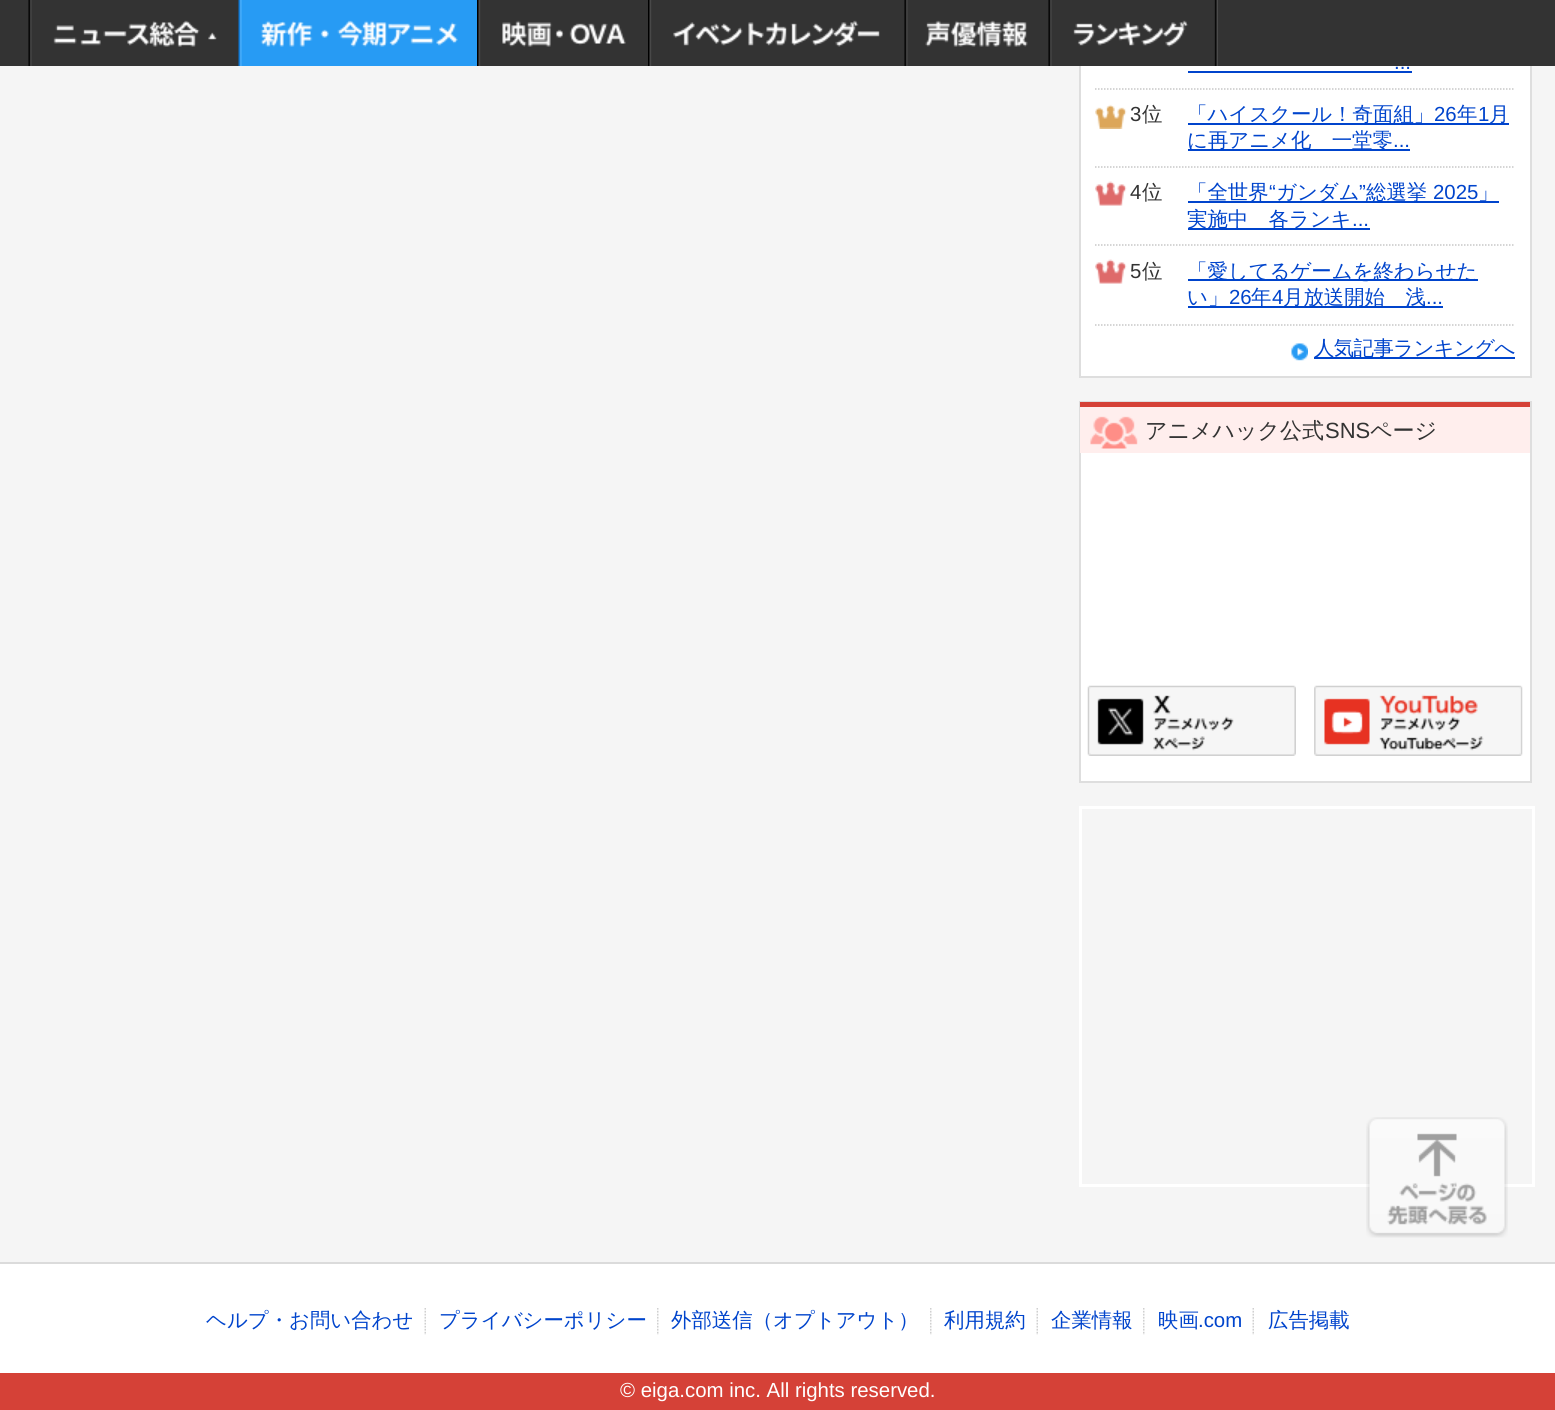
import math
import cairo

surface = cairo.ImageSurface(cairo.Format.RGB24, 1555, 1410)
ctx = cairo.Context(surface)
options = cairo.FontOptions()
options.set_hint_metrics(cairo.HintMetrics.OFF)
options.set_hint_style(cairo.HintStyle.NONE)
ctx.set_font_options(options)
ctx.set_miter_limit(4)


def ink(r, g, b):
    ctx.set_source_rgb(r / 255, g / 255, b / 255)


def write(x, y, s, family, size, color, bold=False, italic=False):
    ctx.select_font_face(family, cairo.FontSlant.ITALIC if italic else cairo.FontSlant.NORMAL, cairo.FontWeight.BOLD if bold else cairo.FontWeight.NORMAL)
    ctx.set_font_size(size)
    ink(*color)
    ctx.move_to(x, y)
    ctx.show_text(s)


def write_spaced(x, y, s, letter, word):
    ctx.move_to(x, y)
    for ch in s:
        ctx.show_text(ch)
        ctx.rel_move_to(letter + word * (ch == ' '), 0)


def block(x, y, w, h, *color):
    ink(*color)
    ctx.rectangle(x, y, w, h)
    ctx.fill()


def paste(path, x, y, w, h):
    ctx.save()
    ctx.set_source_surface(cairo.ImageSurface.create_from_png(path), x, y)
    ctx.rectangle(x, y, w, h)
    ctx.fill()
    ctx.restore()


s1 = dict(family="Liberation Sans", size=20.4, color=(0, 68, 204))
s2 = dict(family="Liberation Sans", size=20.4, color=(51, 51, 51))
s3 = dict(family="WenQuanYi Zen Hei Medium", size=20.4, color=(51, 51, 51))
s4 = dict(family="WenQuanYi Zen Hei Medium", size=20.4, color=(0, 68, 204))
s5 = dict(family="WenQuanYi Zen Hei Medium", size=22, color=(51, 51, 51))
s6 = dict(family="Liberation Sans", size=22, color=(51, 51, 51))
s7 = dict(family="Liberation Sans", size=20.4, color=(255, 255, 255))

ink(245, 245, 245)
ctx.paint()
block(1081, 66, 449, 310, 255, 255, 255)
ctx.rectangle(1080, -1, 451, 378)
ink(222, 222, 222)
ctx.stroke()
block(0, 0, 1555, 66, 51, 51, 51)
paste("pic1.png", 28, 0, 189, 66)
paste("pic2.png", 238, 0, 239, 66)
paste("pic3.png", 477, 0, 169, 66)
paste("pic4.png", 648, 0, 252, 66)
paste("pic5.png", 904, 0, 124, 66)
paste("pic6.png", 1048, 0, 170, 66)
ctx.new_path()
ctx.move_to(1095, 89)
ctx.line_to(1515, 89)
ink(199, 199, 199)
ctx.set_line_width(1.5)
ctx.set_dash([1.5, 1.5])
ctx.stroke()
write(1394, 69, "...", **s1)
block(1188, 71, 224, 2, 0, 68, 204)
ctx.new_path()
ctx.move_to(1095, 167)
ctx.line_to(1515, 167)
ink(199, 199, 199)
ctx.stroke()
paste("pic7.png", 1095, 104, 32, 25)
write(1130, 121, "3", **s2)
write(1142, 121, "位", **s3)
block(1188, 123, 321, 2, 0, 68, 204)
write(1187, 121, "「ハイスクール！奇面組」", **s4)
write(1434, 121, "26", **s1)
write(1457, 121, "年", **s4)
write(1478, 121, "1", **s1)
write(1489, 121, "月", **s4)
block(1188, 149, 222, 2, 0, 68, 204)
write(1187, 147, "に再アニメ化　一堂零", **s4)
write(1393, 147, "...", **s1)
ctx.new_path()
ctx.move_to(1095, 245)
ctx.line_to(1515, 245)
ink(199, 199, 199)
ctx.stroke()
paste("pic8.png", 1095, 181, 32, 25)
write(1130, 199, "4", **s2)
write(1142, 199, "位", **s3)
block(1188, 201, 311, 2, 0, 68, 204)
write(1187, 199, "「全世界", **s4)
write(1269, 199, "“", **s1)
write(1276, 199, "ガンダム", **s4)
write(1359, 199, "”", **s1)
write(1366, 199, "総選挙", **s4)
write(1433, 199, "2025", **s1)
write(1478, 199, "」", **s4)
block(1188, 228, 182, 2, 0, 68, 204)
write(1187, 226, "実施中　各ランキ", **s4)
write(1352, 226, "...", **s1)
ctx.new_path()
ctx.move_to(1095, 325)
ctx.line_to(1515, 325)
ink(199, 199, 199)
ctx.stroke()
paste("pic8.png", 1095, 259, 32, 25)
write(1130, 278, "5", **s2)
write(1142, 278, "位", **s3)
block(1188, 279, 290, 2, 0, 68, 204)
write(1187, 278, "「愛してるゲームを終わらせた", **s4)
write(1187, 304, "い」", **s4)
write(1229, 304, "26", **s1)
block(1188, 306, 255, 2, 0, 68, 204)
write(1251, 304, "年", **s4)
write(1272, 304, "4", **s1)
write(1283, 304, "月放送開始　浅", **s4)
write(1426, 304, "...", **s1)
paste("pic9.png", 1291, 343, 17, 18)
block(1314, 357, 201, 2, 0, 68, 204)
ctx.select_font_face("WenQuanYi Zen Hei Medium")
write_spaced(1314, 355, "人気記事ランキングへ", -0.6, 0)
block(1081, 453, 449, 328, 255, 255, 255)
ctx.rectangle(1080, 402, 451, 380)
ink(222, 222, 222)
ctx.set_line_width(2)
ctx.set_dash([])
ctx.stroke()
block(1080, 407, 450, 46, 255, 238, 237)
block(1080, 402, 450, 5, 213, 65, 55)
paste("pic10.png", 1090, 416, 48, 33)
write(1145, 438, "アニメハック公式", **s5)
write(1325, 438, "SNS", **s6)
write(1370, 438, "ページ", **s5)
paste("pic11.png", 1087, 685, 209, 71)
paste("pic12.png", 1314, 685, 209, 71)
ctx.rectangle(1080.5, 807.5, 453, 378)
ink(255, 255, 255)
ctx.set_line_width(3)
ctx.stroke()
paste("pic13.png", 1366, 1117, 142, 121)
block(0, 1264, 1555, 109, 255, 255, 255)
block(0, 1262, 1555, 2, 219, 219, 219)
paste("pic14.png", 424, 1308, 2, 27)
write(206, 1327, "ヘルプ・お問い合わせ", **s4)
paste("pic15.png", 657, 1308, 2, 27)
write(439, 1327, "プライバシーポリシー", **s4)
paste("pic15.png", 930, 1308, 2, 27)
write(671, 1327, "外部送信（オプトアウト）", **s4)
paste("pic14.png", 1036, 1308, 2, 27)
write(944, 1327, "利用規約", **s4)
paste("pic15.png", 1143, 1308, 2, 27)
write(1051, 1327, "企業情報", **s4)
paste("pic14.png", 1252, 1308, 2, 27)
write(1158, 1327, "映画", **s4)
write(1198, 1327, ".com", **s1)
write(1268, 1327, "広告掲載", **s4)
block(0, 1373, 1555, 37, 213, 65, 55)
write(620, 1397, "© eiga.com inc. All rights reserved.", **s7)
surface.write_to_png("screenshot.png")
